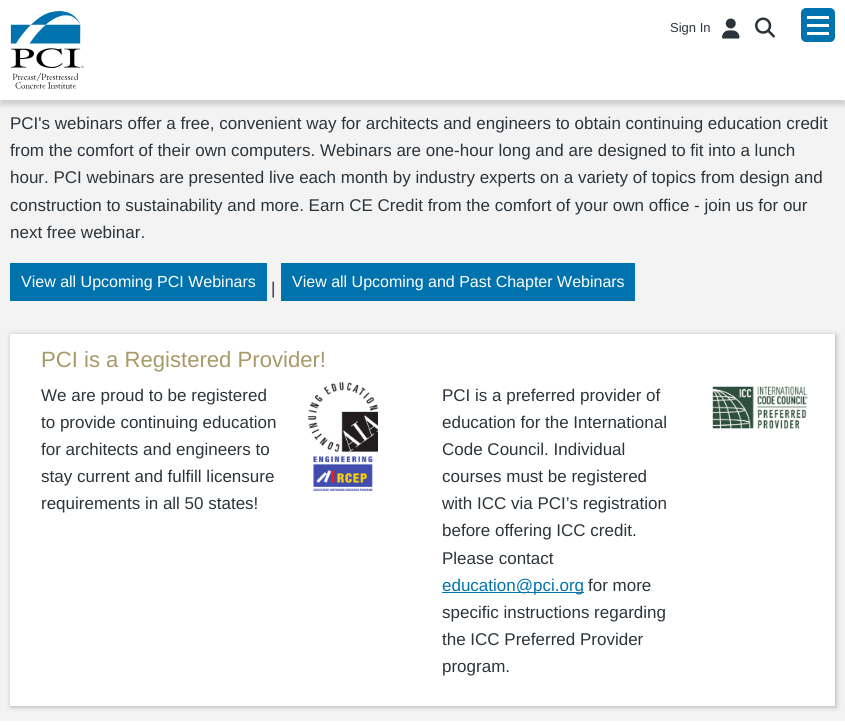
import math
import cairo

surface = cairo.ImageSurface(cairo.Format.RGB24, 845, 728)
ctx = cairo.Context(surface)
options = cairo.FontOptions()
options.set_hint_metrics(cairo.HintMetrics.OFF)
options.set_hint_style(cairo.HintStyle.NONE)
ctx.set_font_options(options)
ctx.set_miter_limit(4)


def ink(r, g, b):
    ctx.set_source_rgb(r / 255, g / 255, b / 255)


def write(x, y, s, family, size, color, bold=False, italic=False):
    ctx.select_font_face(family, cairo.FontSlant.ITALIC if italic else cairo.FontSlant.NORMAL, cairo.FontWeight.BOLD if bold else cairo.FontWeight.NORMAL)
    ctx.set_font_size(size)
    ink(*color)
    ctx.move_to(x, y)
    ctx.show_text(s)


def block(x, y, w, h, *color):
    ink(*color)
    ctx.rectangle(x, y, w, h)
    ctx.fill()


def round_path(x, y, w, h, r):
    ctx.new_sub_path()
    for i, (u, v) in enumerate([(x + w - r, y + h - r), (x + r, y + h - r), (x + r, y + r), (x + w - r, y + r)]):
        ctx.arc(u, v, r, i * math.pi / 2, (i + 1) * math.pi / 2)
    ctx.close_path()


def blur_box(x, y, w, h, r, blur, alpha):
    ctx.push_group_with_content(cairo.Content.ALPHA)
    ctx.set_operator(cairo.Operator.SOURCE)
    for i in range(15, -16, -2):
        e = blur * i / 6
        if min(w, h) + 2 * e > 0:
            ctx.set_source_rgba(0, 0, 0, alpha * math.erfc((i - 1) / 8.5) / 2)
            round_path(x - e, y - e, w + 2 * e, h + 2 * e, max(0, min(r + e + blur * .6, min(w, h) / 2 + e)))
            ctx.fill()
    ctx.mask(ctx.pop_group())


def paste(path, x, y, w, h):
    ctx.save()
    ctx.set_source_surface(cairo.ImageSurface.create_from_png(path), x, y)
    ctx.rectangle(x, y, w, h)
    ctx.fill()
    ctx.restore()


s1 = dict(family="Liberation Sans", size=13, color=(44, 52, 59))
s2 = dict(family="Liberation Sans", size=17, color=(44, 52, 59))
s3 = dict(family="Liberation Sans", size=16, color=(255, 255, 255))
s4 = dict(family="Liberation Sans", size=22.1, color=(168, 153, 104))
s5 = dict(family="Liberation Sans", size=17, color=(0, 115, 174))

ink(243, 243, 243)
ctx.paint()
ink(0, 0, 0)
blur_box(0, 5, 845, 100, 0, 2.5, 0.15)
block(0, 0, 845, 100, 255, 255, 255)
paste("pic1.png", 10, 11, 74, 78)
write(670, 32, "Sign In", **s1)
paste("pic2.png", 722, 18, 18, 21)
paste("pic3.png", 755, 17, 20, 21)
ink(0, 115, 174)
round_path(801, 8, 34, 34, 5)
ctx.fill()
block(807, 16, 22, 3, 255, 255, 255)
block(807, 24, 22, 3, 255, 255, 255)
block(807, 32, 22, 3, 255, 255, 255)
write(10, 129, "PCI's webinars offer a free, convenient way for architects and engineers to obtain continuing education credit", **s2)
write(10, 156, "from the comfort of their own computers. Webinars are one-hour long and are designed to fit into a lunch", **s2)
write(10, 183, "hour. PCI webinars are presented live each month by industry experts on a variety of topics from design and", **s2)
write(10, 211, "construction to sustainability and more. Earn CE Credit from the comfort of your own office - join us for our", **s2)
write(10, 238, "next free webinar.", **s2)
block(10, 263, 257, 38, 0, 115, 174)
write(21, 287, "View all Upcoming PCI Webinars", **s3)
write(271, 294, "|", **s2)
block(281, 263, 354, 38, 0, 115, 174)
write(292, 287, "View all Upcoming and Past Chapter Webinars", **s3)
ink(178, 177, 177)
blur_box(11, 335, 825, 372, 0, 2.5, 1)
block(10, 334, 825, 372, 255, 255, 255)
write(41, 367, "PCI is a Registered Provider!", **s4)
write(41, 401, "We are proud to be registered", **s2)
write(41, 428, "to provide continuing education", **s2)
write(41, 455, "for architects and engineers to", **s2)
write(41, 482, "stay current and fulfill licensure", **s2)
write(41, 509, "requirements in all 50 states!", **s2)
paste("pic4.png", 308, 382, 70, 70)
paste("pic5.png", 313, 456, 60, 35)
write(442, 401, "PCI is a preferred provider of", **s2)
write(442, 428, "education for the International", **s2)
write(442, 455, "Code Council. Individual", **s2)
write(442, 482, "courses must be registered", **s2)
write(442, 509, "with ICC via PCI’s registration", **s2)
write(442, 536, "before offering ICC credit.", **s2)
write(442, 564, "Please contact", **s2)
block(442, 592, 142, 1, 0, 115, 174)
write(442, 591, "education@pci.org", **s5)
write(588, 591, "for more", **s2)
write(442, 618, "specific instructions regarding", **s2)
write(442, 645, "the ICC Preferred Provider", **s2)
write(442, 672, "program.", **s2)
paste("pic6.png", 712, 386, 96, 43)
gradient = cairo.LinearGradient(422, 721, 423, 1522)
gradient.add_color_stop_rgba(0, 1, 1, 1, 1)
gradient.add_color_stop_rgba(1, 0.937, 0.937, 0.937, 1)
ctx.set_source(gradient)
ctx.rectangle(0, 721, 845, 7)
ctx.fill()
surface.write_to_png("screenshot.png")
